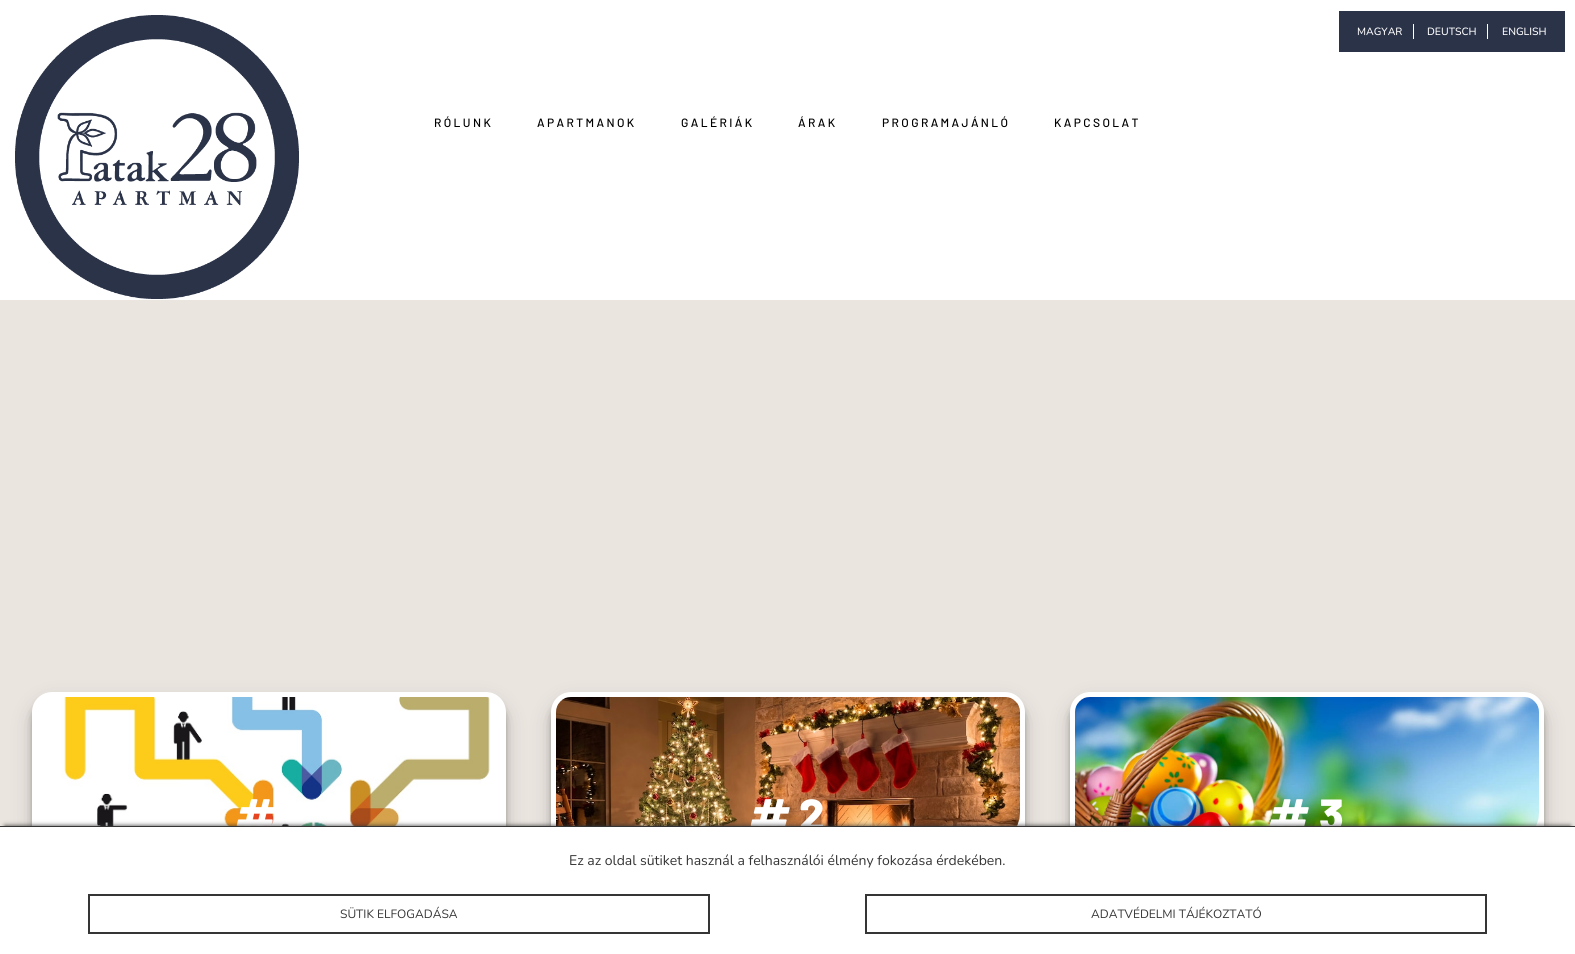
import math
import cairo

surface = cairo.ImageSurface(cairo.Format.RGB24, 1575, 954)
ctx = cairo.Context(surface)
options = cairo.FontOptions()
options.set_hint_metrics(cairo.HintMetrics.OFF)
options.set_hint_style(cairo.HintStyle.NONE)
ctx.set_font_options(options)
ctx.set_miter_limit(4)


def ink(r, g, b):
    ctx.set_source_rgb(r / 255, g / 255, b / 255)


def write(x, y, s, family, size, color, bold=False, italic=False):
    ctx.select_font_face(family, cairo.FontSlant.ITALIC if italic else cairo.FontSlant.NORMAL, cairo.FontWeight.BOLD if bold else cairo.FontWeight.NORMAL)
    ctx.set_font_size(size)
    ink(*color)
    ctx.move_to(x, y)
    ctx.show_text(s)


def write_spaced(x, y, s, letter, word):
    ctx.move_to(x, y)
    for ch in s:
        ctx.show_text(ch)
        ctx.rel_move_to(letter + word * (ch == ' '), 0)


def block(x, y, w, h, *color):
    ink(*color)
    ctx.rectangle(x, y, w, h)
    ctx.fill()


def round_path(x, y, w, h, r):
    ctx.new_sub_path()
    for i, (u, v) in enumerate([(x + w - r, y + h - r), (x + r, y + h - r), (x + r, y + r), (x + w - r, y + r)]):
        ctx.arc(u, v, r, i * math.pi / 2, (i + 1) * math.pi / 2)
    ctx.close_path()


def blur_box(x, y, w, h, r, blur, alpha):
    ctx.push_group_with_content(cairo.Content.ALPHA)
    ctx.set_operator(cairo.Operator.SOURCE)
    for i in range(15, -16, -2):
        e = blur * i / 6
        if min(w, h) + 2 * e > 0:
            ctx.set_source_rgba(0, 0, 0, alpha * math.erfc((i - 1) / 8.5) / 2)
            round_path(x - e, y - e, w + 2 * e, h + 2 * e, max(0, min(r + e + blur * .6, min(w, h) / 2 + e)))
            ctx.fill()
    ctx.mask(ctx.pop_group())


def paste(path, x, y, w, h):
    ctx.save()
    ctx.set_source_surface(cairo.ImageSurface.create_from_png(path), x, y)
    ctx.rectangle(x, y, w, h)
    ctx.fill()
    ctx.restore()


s1 = dict(family="Nunito Medium", size=10.5, color=(255, 255, 255))
s2 = dict(family="Barlow ExtraBold", size=45, color=(255, 255, 255))
s3 = dict(family="Nunito", size=14, color=(53, 53, 53))
s4 = dict(family="Nunito", size=12, color=(53, 53, 53))

ink(255, 255, 255)
ctx.paint()
block(0, 300, 1575, 526, 234, 229, 223)
paste("pic1.png", 15, 15, 284, 284)
block(1339, 11, 226, 41, 43, 51, 73)
block(1413, 24, 1, 15, 255, 255, 255)
write(1357, 35, "MAGYAR", **s1)
block(1487, 24, 1, 15, 255, 255, 255)
write(1427, 35, "DEUTSCH", **s1)
write(1502, 35, "ENGLISH", **s1)
ctx.select_font_face("Barlow Medium")
ctx.set_font_size(12)
ink(0, 0, 0)
write_spaced(434, 127, "RÓLUNK", 2.4, 0)
write_spaced(537, 127, "APARTMANOK", 2.4, 0)
write_spaced(681, 127, "GALÉRIÁK", 2.4, 0)
write_spaced(798, 127, "ÁRAK", 2.4, 0)
write_spaced(882, 127, "PROGRAMAJÁNLÓ", 2.4, 0)
write_spaced(1054, 127, "KAPCSOLAT", 2.4, 0)
ink(0, 0, 0)
blur_box(32, 698, 474, 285, 20, 3, 0.23)
blur_box(32, 702, 474, 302, 20, 10, 0.19)
ink(255, 255, 255)
round_path(34.5, 694.5, 469, 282, 17.5)
ctx.fill_preserve()
ctx.set_line_width(5)
ctx.stroke()
paste("pic2.png", 61, 697, 429, 129)
paste("pic3.png", 236, 799, 39, 27)
ink(0, 0, 0)
blur_box(551, 698, 474, 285, 20, 3, 0.23)
blur_box(551, 702, 474, 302, 20, 10, 0.19)
ink(255, 255, 255)
round_path(553.5, 694.5, 469, 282, 17.5)
ctx.fill_preserve()
ctx.stroke()
paste("pic4.png", 556, 697, 464, 129)
paste("pic5.png", 750, 799, 40, 27)
write(799, 831, "2", **s2)
ink(0, 0, 0)
blur_box(1070, 698, 474, 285, 20, 3, 0.23)
blur_box(1070, 702, 474, 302, 20, 10, 0.19)
ink(255, 255, 255)
round_path(1072.5, 694.5, 469, 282, 17.5)
ctx.fill_preserve()
ctx.stroke()
paste("pic6.png", 1075, 697, 464, 129)
paste("pic7.png", 1269, 799, 40, 27)
write(1319, 831, "3", **s2)
ink(53, 53, 53)
blur_box(5, 826, 1565, 118, 0, 2.5, 1)
block(0, 827, 1575, 127, 255, 255, 255)
block(0, 826, 1575, 1, 53, 53, 53)
write(569, 865, "Ez az oldal sütiket használ a felhasználói élmény fokozása érdekében.", **s3)
ctx.rectangle(89, 895, 620, 38)
ctx.set_line_width(2)
ctx.stroke()
write(340, 918, "SÜTIK ELFOGADÁSA", **s4)
ctx.rectangle(866, 895, 620, 38)
ctx.stroke()
write(1091, 918, "ADATVÉDELMI TÁJÉKOZTATÓ", **s4)
surface.write_to_png("screenshot.png")
